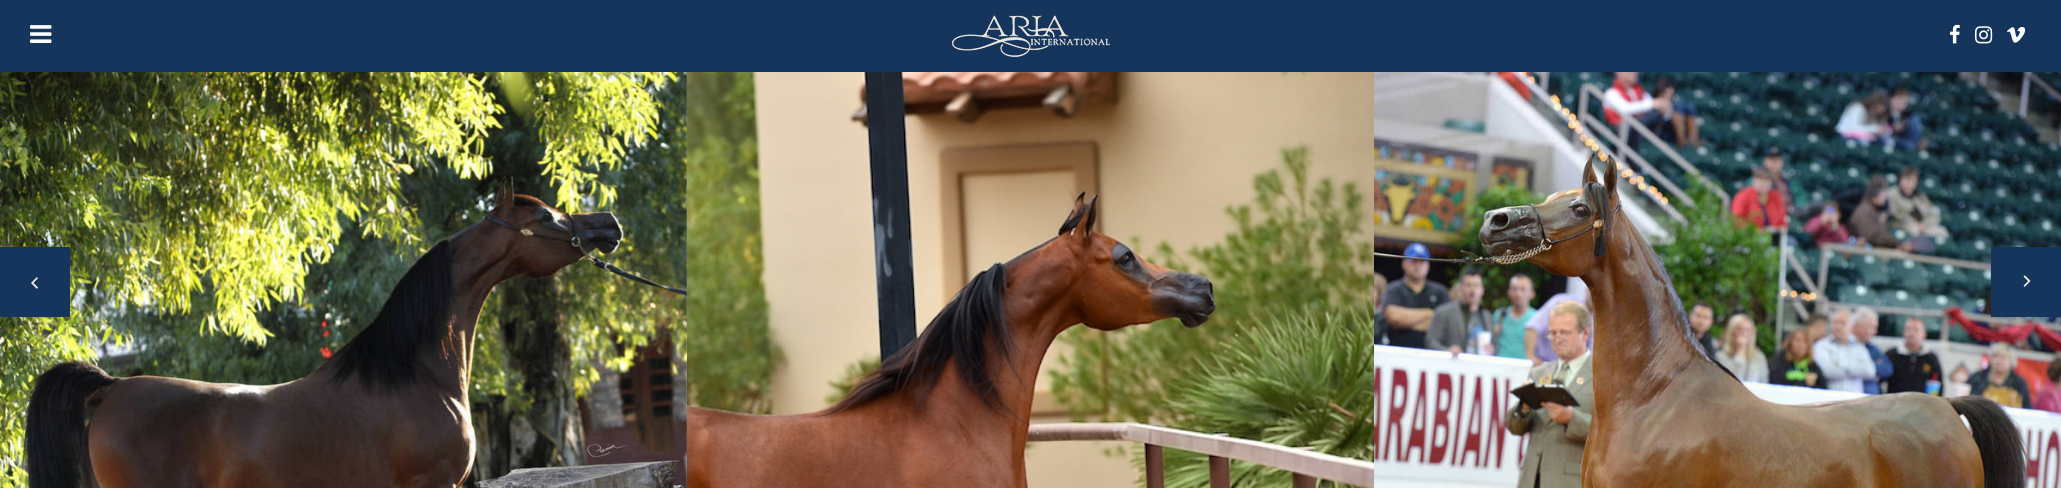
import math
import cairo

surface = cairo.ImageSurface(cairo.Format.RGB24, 2061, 488)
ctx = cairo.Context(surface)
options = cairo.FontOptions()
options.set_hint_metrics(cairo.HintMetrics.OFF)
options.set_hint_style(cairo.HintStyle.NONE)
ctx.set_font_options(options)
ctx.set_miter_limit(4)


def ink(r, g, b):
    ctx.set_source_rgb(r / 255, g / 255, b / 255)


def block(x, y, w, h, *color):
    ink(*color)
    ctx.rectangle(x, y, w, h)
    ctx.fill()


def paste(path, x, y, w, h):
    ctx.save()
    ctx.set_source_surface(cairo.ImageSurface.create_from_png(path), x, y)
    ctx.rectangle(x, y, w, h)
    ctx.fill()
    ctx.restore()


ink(255, 255, 255)
ctx.paint()
block(0, 0, 2061, 72, 21, 53, 93)
paste("pic1.png", 30, 25, 22, 18)
paste("pic2.png", 952, 15, 158, 42)
paste("pic3.png", 1950, 24, 10, 20)
paste("pic4.png", 1975, 26, 18, 18)
paste("pic5.png", 2007, 27, 19, 16)
paste("pic6.png", 0, 72, 687, 416)
paste("pic7.png", 687, 72, 687, 416)
paste("pic8.png", 1374, 72, 687, 416)
paste("pic9.png", 0, 247, 70, 70)
paste("pic10.png", 1991, 247, 70, 70)
surface.write_to_png("screenshot.png")
